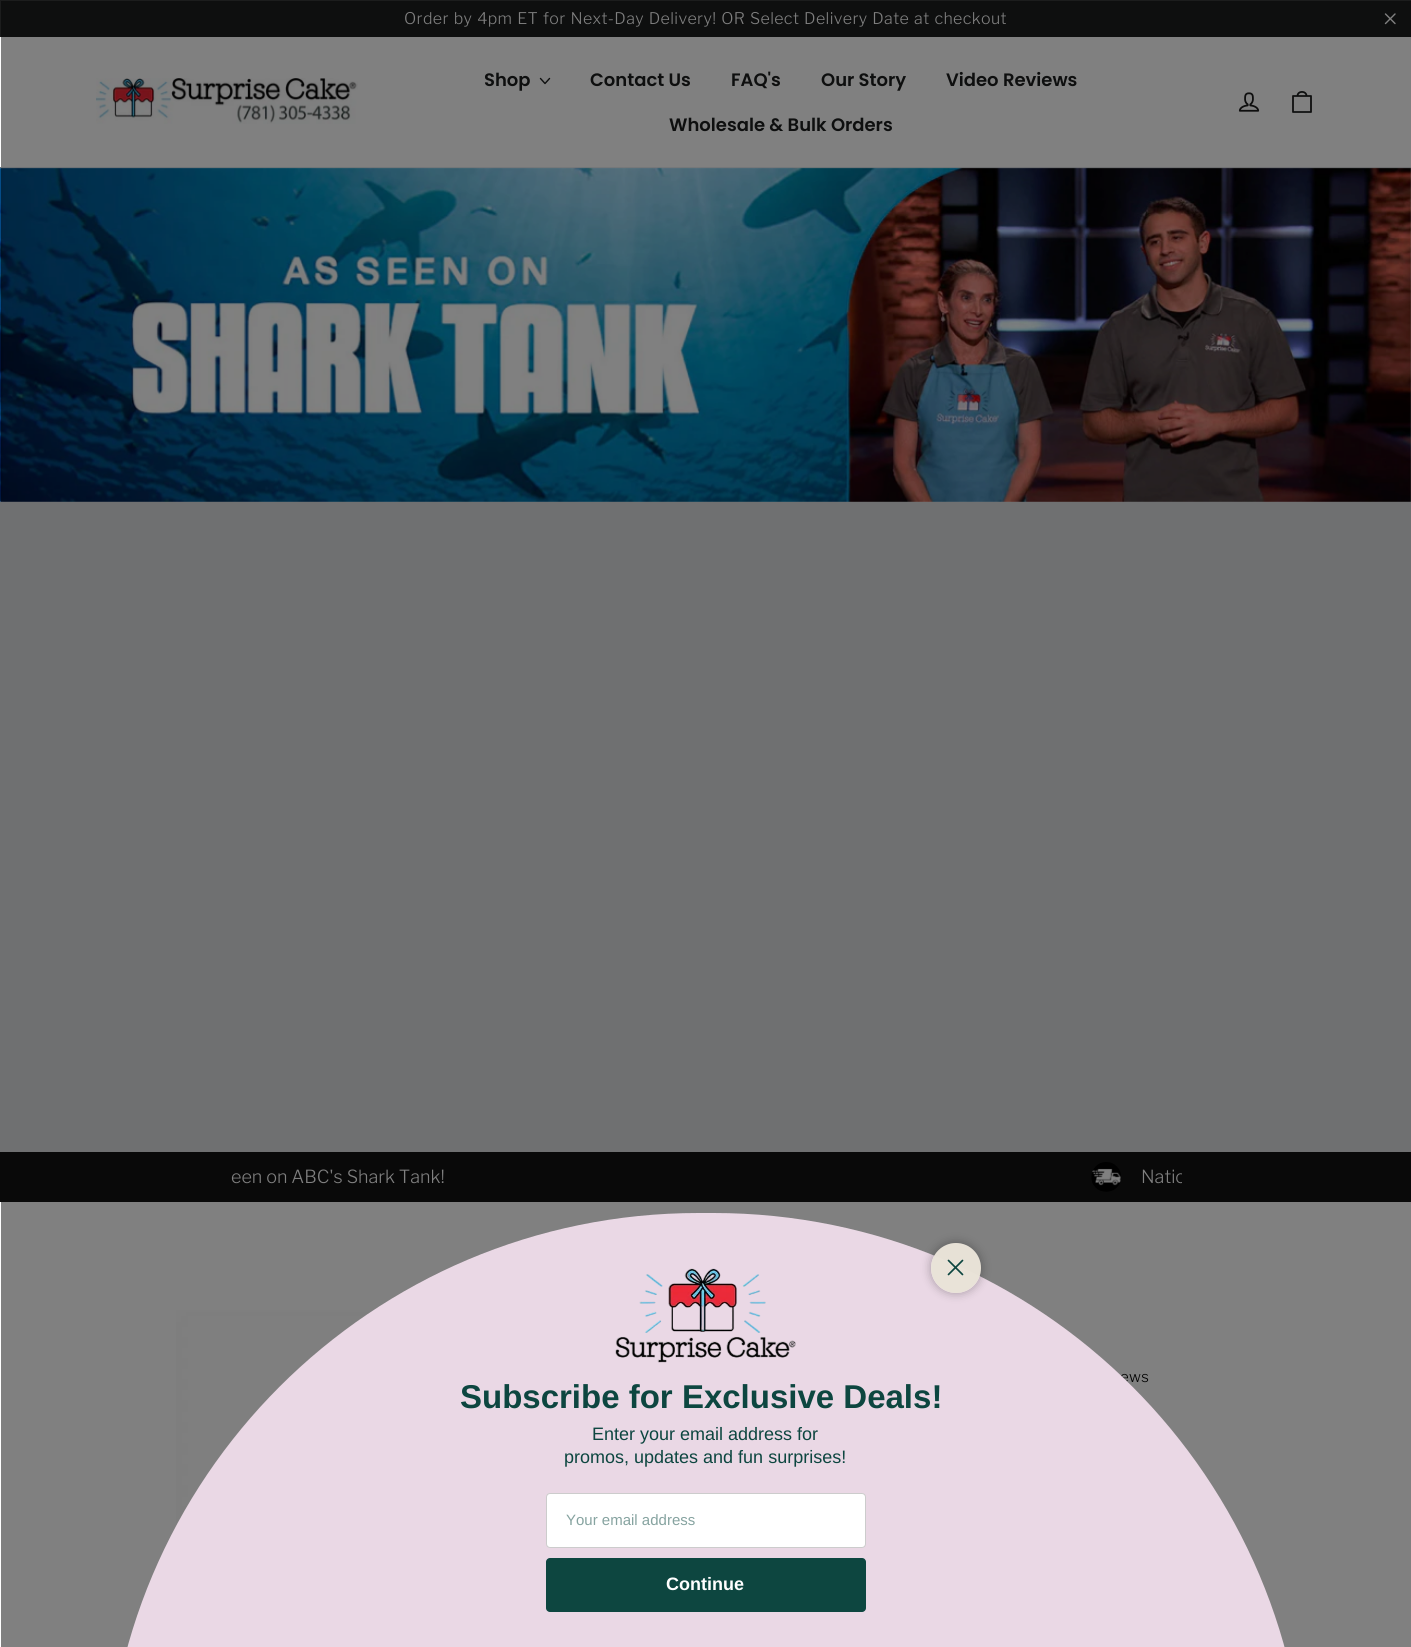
import math
import cairo

surface = cairo.ImageSurface(cairo.Format.RGB24, 1411, 1647)
ctx = cairo.Context(surface)
options = cairo.FontOptions()
options.set_hint_metrics(cairo.HintMetrics.OFF)
options.set_hint_style(cairo.HintStyle.NONE)
ctx.set_font_options(options)
ctx.set_miter_limit(4)


def ink(r, g, b):
    ctx.set_source_rgb(r / 255, g / 255, b / 255)


def write(x, y, s, family, size, color, bold=False, italic=False):
    ctx.select_font_face(family, cairo.FontSlant.ITALIC if italic else cairo.FontSlant.NORMAL, cairo.FontWeight.BOLD if bold else cairo.FontWeight.NORMAL)
    ctx.set_font_size(size)
    ink(*color)
    ctx.move_to(x, y)
    ctx.show_text(s)


def write_spaced(x, y, s, letter, word):
    ctx.move_to(x, y)
    for ch in s:
        ctx.show_text(ch)
        ctx.rel_move_to(letter + word * (ch == ' '), 0)


def block(x, y, w, h, *color):
    ink(*color)
    ctx.rectangle(x, y, w, h)
    ctx.fill()


def round_path(x, y, w, h, r):
    ctx.new_sub_path()
    for i, (u, v) in enumerate([(x + w - r, y + h - r), (x + r, y + h - r), (x + r, y + r), (x + w - r, y + r)]):
        ctx.arc(u, v, r, i * math.pi / 2, (i + 1) * math.pi / 2)
    ctx.close_path()


def blur_box(x, y, w, h, r, blur, alpha):
    ctx.push_group_with_content(cairo.Content.ALPHA)
    ctx.set_operator(cairo.Operator.SOURCE)
    for i in range(15, -16, -2):
        e = blur * i / 6
        if min(w, h) + 2 * e > 0:
            ctx.set_source_rgba(0, 0, 0, alpha * math.erfc((i - 1) / 8.5) / 2)
            round_path(x - e, y - e, w + 2 * e, h + 2 * e, max(0, min(r + e + blur * .6, min(w, h) / 2 + e)))
            ctx.fill()
    ctx.mask(ctx.pop_group())


def paste(path, x, y, w, h):
    ctx.save()
    ctx.set_source_surface(cairo.ImageSurface.create_from_png(path), x, y)
    ctx.rectangle(x, y, w, h)
    ctx.fill()
    ctx.restore()


s1 = dict(family="Poppins SemiBold", size=18, color=(14, 15, 15))
s2 = dict(family="Libre Franklin Light", size=18, color=(128, 128, 128))
s3 = dict(family="Liberation Sans", size=33, color=(13, 70, 64), bold=True)
s4 = dict(family="Liberation Sans", size=18, color=(13, 70, 64))
s5 = dict(family="Liberation Sans", size=15, color=(134, 163, 160))
s6 = dict(family="Liberation Sans", size=18, color=(255, 255, 255), bold=True)

ink(255, 255, 255)
ctx.paint()
block(1, 37, 1410, 1610, 128, 128, 128)
block(0, 0, 1411, 37, 28, 29, 29)
block(1, 1, 1410, 36, 14, 15, 15)
ctx.select_font_face("Libre Franklin Light")
ctx.set_font_size(16)
ink(128, 128, 128)
write_spaced(404, 24, "Order by 4pm ET for Next-Day Delivery! OR Select Delivery Date at checkout", 0.38, 1)
ctx.new_path()
ctx.move_to(1385.5, 14)
ctx.line_to(1395, 23.5)
ctx.move_to(1395, 14)
ctx.line_to(1385.5, 23.5)
ctx.set_line_width(1.4)
ctx.set_line_cap(cairo.LineCap.ROUND)
ctx.set_line_join(cairo.LineJoin.ROUND)
ctx.stroke()
block(0, 167, 1411, 1, 120, 121, 122)
paste("pic1.png", 96, 78, 262, 46)
write(484, 86, "Shop", **s1)
ctx.new_path()
ctx.move_to(540.5, 78.5)
ctx.line_to(545, 83.5)
ctx.line_to(549.5, 78.5)
ctx.stroke()
write(590, 86, "Contact Us", **s1)
write(731, 86, "FAQ's", **s1)
write(821, 86, "Our Story", **s1)
write(946, 86, "Video Reviews", **s1)
write(669, 131, "Wholesale & Bulk Orders", **s1)
paste("pic2.png", 1238, 92, 22, 20)
ctx.new_path()
ctx.move_to(1293, 96)
ctx.line_to(1311, 96)
ctx.line_to(1311, 112)
ctx.line_to(1293, 112)
ctx.close_path()
ctx.move_to(1297.5, 96)
ctx.curve_to(1297.5, 90.5, 1306.5, 90.5, 1306.5, 96)
ctx.set_line_width(1.8)
ctx.stroke()
paste("pic3.png", 0, 167, 1411, 335)
block(0, 502, 1411, 650, 111, 112, 113)
block(0, 1152, 1411, 50, 9, 9, 9)
write(231, 1183, "een on ABC's Shark Tank!", **s2)
paste("pic4.png", 1091, 1162, 30, 30)
ctx.save()
ctx.rectangle(765, 1157, 417, 40)
ctx.clip()
write(1141, 1183, "Natio", **s2)
ctx.restore()
paste("pic5.png", 176, 1310, 198, 216)
ctx.set_font_size(15)
ink(0, 0, 0)
write_spaced(1120, 1382, "ews", 0.38, 3)
ink(234, 216, 229)
ctx.new_path()
ctx.move_to(698.5, 1213)
ctx.line_to(713.5, 1213)
ctx.curve_to(1040.5, 1213, 1306, 1478.5, 1306, 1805.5)
ctx.line_to(1306, 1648)
ctx.line_to(106, 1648)
ctx.line_to(106, 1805.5)
ctx.curve_to(106, 1478.5, 371.5, 1213, 698.5, 1213)
ctx.close_path()
ctx.fill()
ctx.save()
ctx.set_fill_rule(cairo.FillRule.EVEN_ODD)
ctx.new_path()
ctx.move_to(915, 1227)
ctx.line_to(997, 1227)
ctx.line_to(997, 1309)
ctx.line_to(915, 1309)
ctx.close_path()
ctx.move_to(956, 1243)
ctx.curve_to(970, 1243, 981, 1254, 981, 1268)
ctx.curve_to(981, 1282, 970, 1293, 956, 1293)
ctx.curve_to(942, 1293, 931, 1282, 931, 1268)
ctx.curve_to(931, 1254, 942, 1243, 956, 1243)
ctx.close_path()
ctx.clip()
ink(0, 0, 0)
blur_box(931, 1243, 50, 50, 25, 5, 0.3)
ctx.restore()
ctx.set_source_rgba(0.918, 0.89, 0.847, 0.97)
ctx.arc(956, 1268, 25, 0, 2 * math.pi)
ctx.fill()
ctx.new_path()
ctx.move_to(948.5, 1260.5)
ctx.line_to(962.5, 1274.5)
ctx.move_to(962.5, 1260.5)
ctx.line_to(948.5, 1274.5)
ink(13, 70, 64)
ctx.set_line_width(1.7)
ctx.set_line_join(cairo.LineJoin.MITER)
ctx.stroke()
paste("pic6.png", 615, 1268, 181, 95)
write(460, 1408, "Subscribe for Exclusive Deals!", **s3)
write(592, 1440, "Enter your email address for", **s4)
write(564, 1463, "promos, updates and fun surprises!", **s4)
ink(255, 255, 255)
round_path(546.5, 1493.5, 319, 54, 3.5)
ctx.fill_preserve()
ink(204, 204, 204)
ctx.set_line_width(1)
ctx.set_line_cap(cairo.LineCap.BUTT)
ctx.stroke()
write(566, 1525, "Your email address", **s5)
ink(13, 70, 64)
round_path(546, 1558, 320, 54, 4)
ctx.fill()
write(666, 1590, "Continue", **s6)
surface.write_to_png("screenshot.png")
